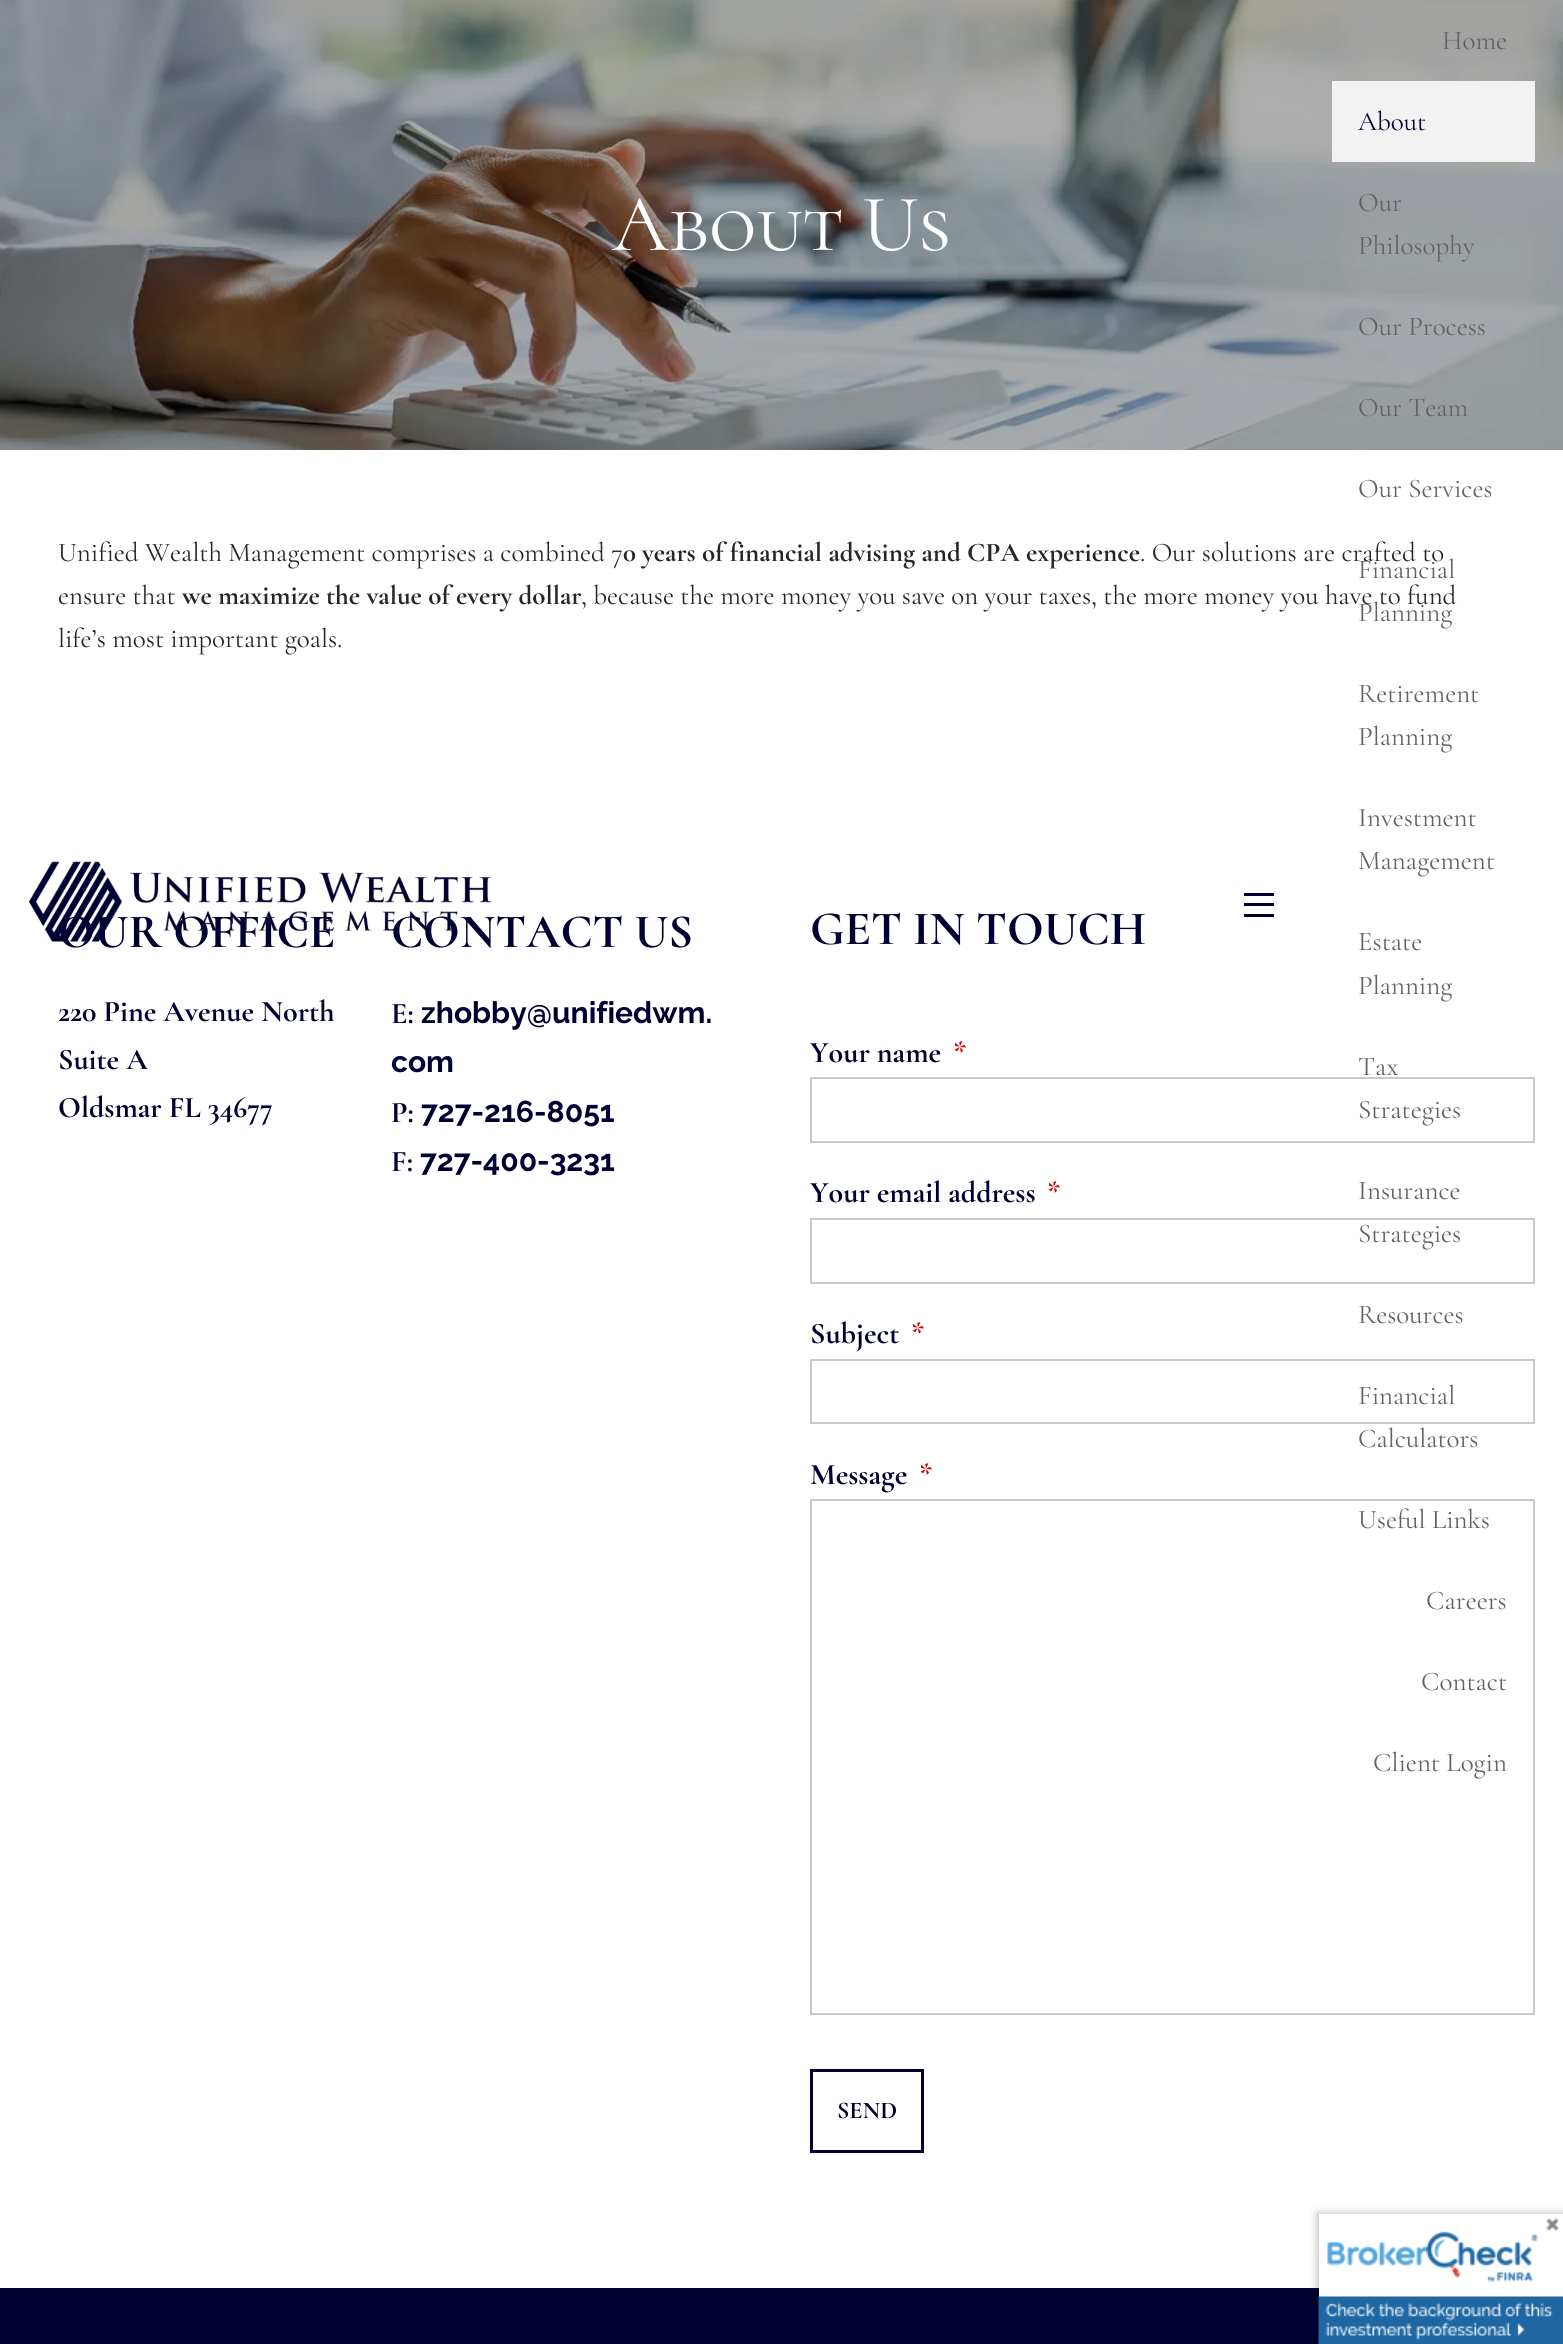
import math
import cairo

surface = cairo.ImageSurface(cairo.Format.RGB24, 1563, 2344)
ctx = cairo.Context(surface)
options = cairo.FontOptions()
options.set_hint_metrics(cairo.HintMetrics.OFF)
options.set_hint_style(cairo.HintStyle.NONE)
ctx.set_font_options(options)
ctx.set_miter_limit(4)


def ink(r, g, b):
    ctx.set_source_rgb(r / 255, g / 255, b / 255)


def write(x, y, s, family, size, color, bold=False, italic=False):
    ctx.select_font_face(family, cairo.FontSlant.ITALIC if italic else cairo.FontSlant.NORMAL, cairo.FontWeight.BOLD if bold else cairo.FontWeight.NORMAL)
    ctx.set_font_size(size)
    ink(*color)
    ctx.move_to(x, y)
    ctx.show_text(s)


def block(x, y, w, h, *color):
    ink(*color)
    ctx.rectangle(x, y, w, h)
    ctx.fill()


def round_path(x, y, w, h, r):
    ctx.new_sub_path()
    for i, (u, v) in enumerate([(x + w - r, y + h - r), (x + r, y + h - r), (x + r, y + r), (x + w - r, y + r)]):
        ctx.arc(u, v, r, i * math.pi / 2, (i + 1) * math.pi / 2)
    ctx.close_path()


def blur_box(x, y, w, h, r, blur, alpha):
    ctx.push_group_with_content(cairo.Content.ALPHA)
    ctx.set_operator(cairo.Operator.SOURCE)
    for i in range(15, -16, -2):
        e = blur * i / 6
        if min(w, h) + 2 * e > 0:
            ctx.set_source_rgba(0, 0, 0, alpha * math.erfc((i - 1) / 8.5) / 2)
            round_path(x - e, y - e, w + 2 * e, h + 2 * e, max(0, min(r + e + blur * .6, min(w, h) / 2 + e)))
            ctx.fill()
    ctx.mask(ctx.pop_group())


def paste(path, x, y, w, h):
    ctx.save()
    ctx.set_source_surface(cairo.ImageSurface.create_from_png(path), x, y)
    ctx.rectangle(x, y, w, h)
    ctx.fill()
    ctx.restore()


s1 = dict(family="Cormorant SC", size=81, color=(255, 255, 255))
s2 = dict(family="Cormorant SC", size=48, color=(0, 0, 50), bold=True)
s3 = dict(family="Cormorant Garamond", size=27, color=(102, 96, 100))
s4 = dict(family="Cormorant Garamond", size=27, color=(0, 0, 50))
s5 = dict(family="Cormorant Garamond", size=27, color=(38, 38, 38))
s6 = dict(family="Cormorant Garamond", size=27, color=(38, 38, 38), bold=True)
s7 = dict(family="Cormorant Garamond", size=30, color=(0, 0, 50), bold=True)
s8 = dict(family="Raleway Thin", size=30, color=(0, 0, 50))
s9 = dict(family="Cormorant Garamond SemiBold", size=30, color=(204, 0, 0))
s10 = dict(family="Cormorant Garamond", size=24, color=(0, 0, 50), bold=True)

ink(255, 255, 255)
ctx.paint()
paste("pic1.png", 0, 0, 1563, 450)
write(612, 250, "About Us", **s1)
write(58, 947, "OUR OFFICE", **s2)
write(391, 947, "CONTACT US", **s2)
paste("pic2.png", 29, 861, 463, 82)
block(1244, 914, 30, 3, 0, 0, 50)
block(1244, 903, 30, 3, 0, 0, 50)
block(1244, 893, 30, 3, 0, 0, 50)
write(1442, 49, "Home", **s3)
block(1332, 81, 203, 81, 242, 242, 242)
write(1358, 130, "About", **s4)
write(1358, 211, "Our", **s3)
write(1358, 254, "Philosophy", **s3)
write(1358, 335, "Our Process", **s3)
write(1358, 416, "Our Team", **s3)
write(1358, 497, "Our Services", **s3)
write(1358, 578, "Financial", **s3)
write(1358, 621, "Planning", **s3)
write(1358, 702, "Retirement", **s3)
write(1358, 745, "Planning", **s3)
write(1358, 826, "Investment", **s3)
write(1358, 869, "Management", **s3)
write(1358, 950, "Estate", **s3)
write(1358, 994, "Planning", **s3)
write(1358, 1075, "Tax", **s3)
ctx.rectangle(811, 1078, 723, 64)
ink(202, 202, 202)
ctx.stroke()
write(1358, 1118, "Strategies", **s3)
write(1358, 1199, "Insurance", **s3)
ctx.rectangle(811, 1219, 723, 64)
ink(202, 202, 202)
ctx.stroke()
write(1358, 1242, "Strategies", **s3)
write(1358, 1323, "Resources", **s3)
ctx.rectangle(811, 1360, 723, 63)
ink(202, 202, 202)
ctx.stroke()
write(1358, 1404, "Financial", **s3)
write(1358, 1447, "Calculators", **s3)
ctx.rectangle(811, 1500, 723, 514)
ink(202, 202, 202)
ctx.stroke()
write(1358, 1528, "Useful Links", **s3)
write(1426, 1609, "Careers", **s3)
write(1421, 1690, "Contact", **s3)
write(1373, 1771, "Client Login", **s3)
write(58, 561, "Unified Wealth Management comprises a combined 7", **s5)
write(623, 561, "0 years of financial advising and CPA experience", **s6)
write(1140, 561, ". Our solutions are crafted to", **s5)
write(58, 604, "ensure that", **s5)
write(182, 604, "we maximize the value of every dollar", **s6)
write(581, 604, ", because the more money you save on your taxes, the more money you have to fund", **s5)
write(58, 647, "life’s most important goals.", **s5)
write(58, 1021, "220 Pine Avenue North", **s7)
write(58, 1069, "Suite A", **s7)
write(58, 1117, "Oldsmar FL 34677", **s7)
write(391, 1023, "E:", **s7)
write(421, 1023, "zhobby@unifiedwm.", **s8)
write(391, 1072, "com", **s8)
write(391, 1122, "P:", **s7)
write(421, 1122, "727-216-8051", **s8)
write(391, 1171, "F:", **s7)
write(420, 1171, "727-400-3231", **s8)
write(810, 944, "GET IN TOUCH", **s2)
write(810, 1062, "Your name", **s7)
write(953, 1062, "*", **s9)
write(810, 1202, "Your email address", **s7)
write(1047, 1202, "*", **s9)
write(810, 1343, "Subject", **s7)
write(911, 1343, "*", **s9)
write(810, 1484, "Message", **s7)
write(919, 1484, "*", **s9)
ctx.rectangle(811.5, 2070.5, 111, 81)
ink(0, 0, 50)
ctx.set_line_width(3)
ctx.stroke()
write(837, 2118, "SEND", **s10)
block(0, 2288, 1319, 56, 0, 0, 50)
ctx.save()
ctx.set_fill_rule(cairo.FillRule.EVEN_ODD)
ctx.new_path()
ctx.move_to(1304, 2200)
ctx.line_to(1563, 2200)
ctx.line_to(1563, 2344)
ctx.line_to(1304, 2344)
ctx.close_path()
ctx.move_to(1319, 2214)
ctx.line_to(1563, 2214)
ctx.line_to(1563, 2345)
ctx.line_to(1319, 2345)
ctx.close_path()
ctx.clip()
ink(0, 0, 0)
blur_box(1317, 2213, 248, 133, 0, 4, 0.25)
ctx.restore()
paste("pic3.png", 1318, 2218, 245, 126)
surface.write_to_png("screenshot.png")
